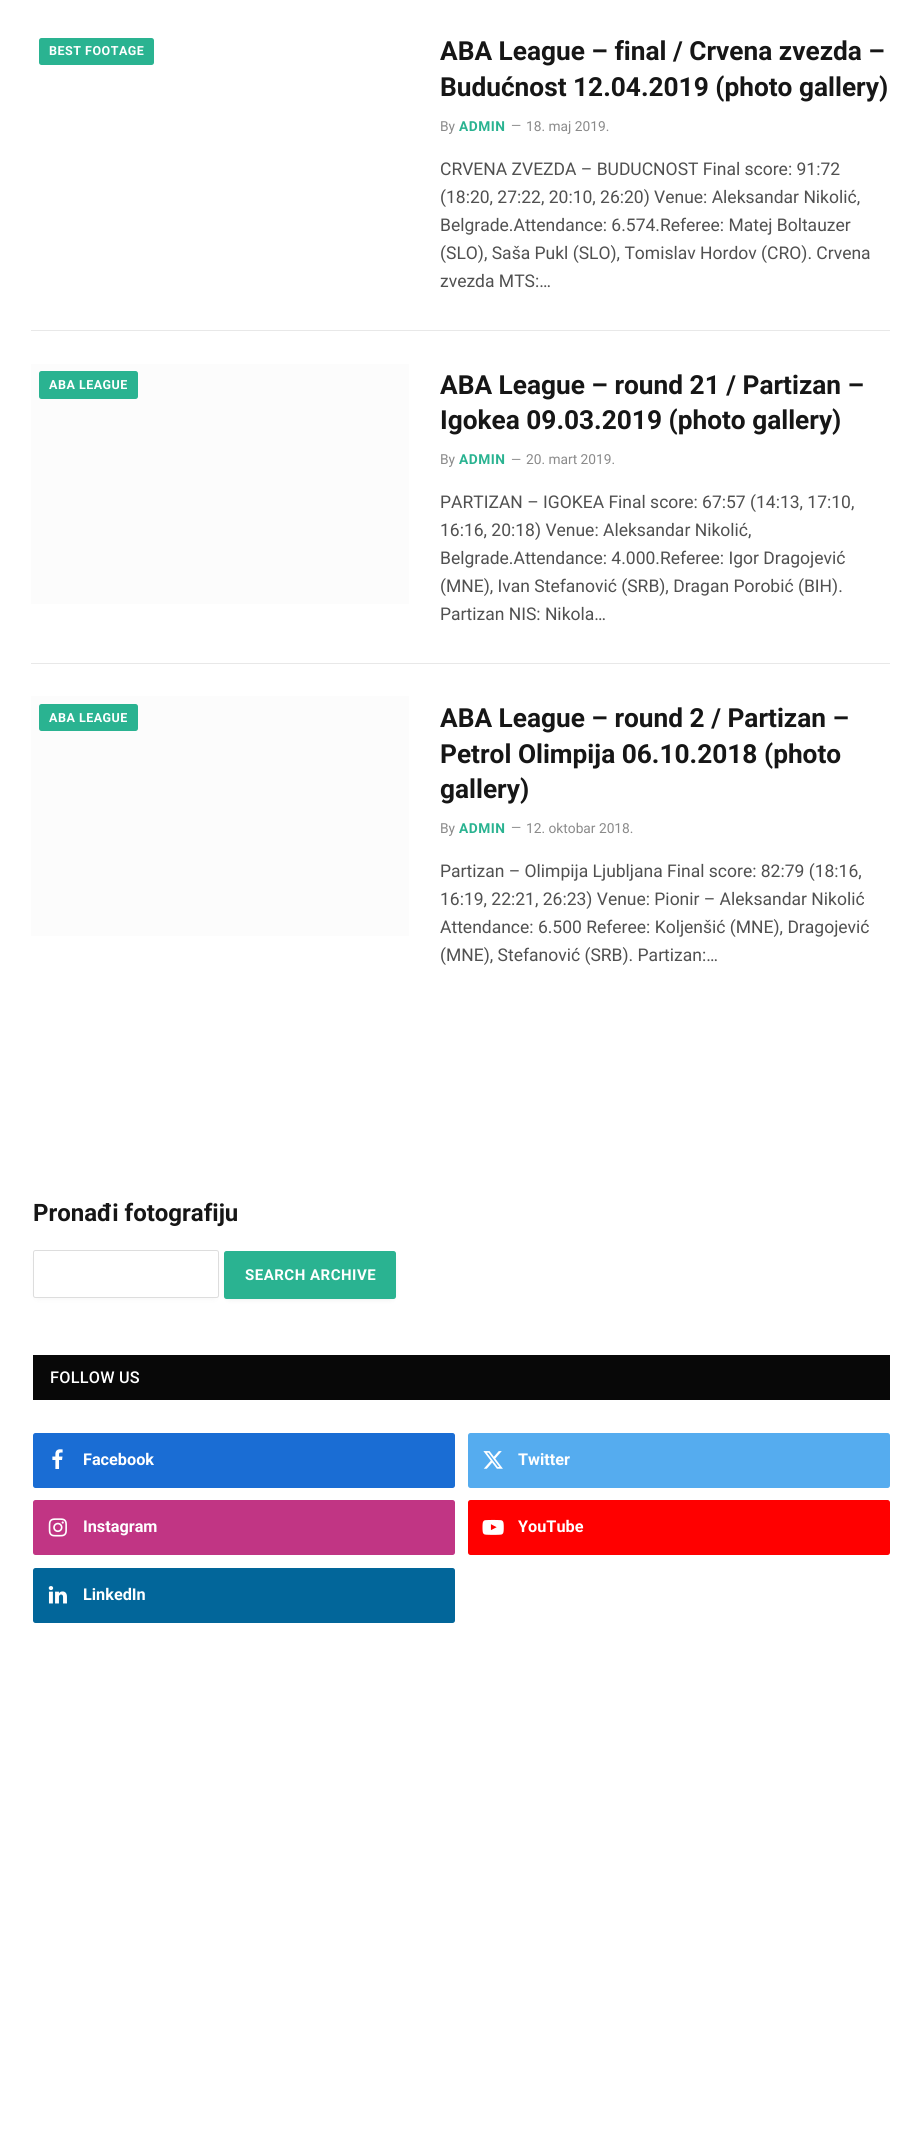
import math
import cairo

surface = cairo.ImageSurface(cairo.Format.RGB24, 921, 2142)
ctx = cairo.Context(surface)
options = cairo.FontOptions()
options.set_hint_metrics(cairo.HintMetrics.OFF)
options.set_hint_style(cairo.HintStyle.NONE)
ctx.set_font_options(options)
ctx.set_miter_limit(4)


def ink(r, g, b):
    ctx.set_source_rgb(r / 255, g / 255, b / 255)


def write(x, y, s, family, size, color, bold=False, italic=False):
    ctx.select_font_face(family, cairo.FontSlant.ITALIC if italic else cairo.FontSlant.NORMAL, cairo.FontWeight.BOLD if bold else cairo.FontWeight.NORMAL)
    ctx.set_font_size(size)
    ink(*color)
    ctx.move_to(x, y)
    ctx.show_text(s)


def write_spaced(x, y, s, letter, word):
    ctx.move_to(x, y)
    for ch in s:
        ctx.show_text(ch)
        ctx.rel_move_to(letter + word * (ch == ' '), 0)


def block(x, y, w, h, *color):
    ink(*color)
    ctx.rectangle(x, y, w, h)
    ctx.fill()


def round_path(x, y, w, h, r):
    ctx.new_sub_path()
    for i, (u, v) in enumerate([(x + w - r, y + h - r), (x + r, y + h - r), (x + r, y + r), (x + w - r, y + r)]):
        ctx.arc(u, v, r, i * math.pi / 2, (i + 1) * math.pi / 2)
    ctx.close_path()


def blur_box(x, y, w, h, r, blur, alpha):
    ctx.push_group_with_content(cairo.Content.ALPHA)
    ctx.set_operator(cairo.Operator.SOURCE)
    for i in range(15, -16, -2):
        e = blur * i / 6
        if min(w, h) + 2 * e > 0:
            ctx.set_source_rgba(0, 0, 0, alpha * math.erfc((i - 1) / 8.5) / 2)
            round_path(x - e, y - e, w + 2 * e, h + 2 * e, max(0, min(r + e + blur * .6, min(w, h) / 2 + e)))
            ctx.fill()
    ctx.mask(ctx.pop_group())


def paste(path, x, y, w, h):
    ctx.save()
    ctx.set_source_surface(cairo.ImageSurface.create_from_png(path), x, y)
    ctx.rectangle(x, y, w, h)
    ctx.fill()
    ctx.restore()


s1 = dict(family="Roboto", size=26.25, color=(22, 22, 22), bold=True)
s2 = dict(family="Roboto", size=13.75, color=(138, 138, 138))
s3 = dict(family="Roboto", size=13, color=(138, 138, 138))
s4 = dict(family="Roboto", size=17.5, color=(80, 80, 80))
s5 = dict(family="Roboto", size=24, color=(22, 22, 22), bold=True)
s6 = dict(family="Roboto", size=16.25, color=(255, 255, 255), bold=True)

ink(255, 255, 255)
ctx.paint()
ink(42, 179, 145)
round_path(39, 38, 115, 27, 2.5)
ctx.fill()
ctx.select_font_face("Roboto", cairo.FontSlant.NORMAL, cairo.FontWeight.BOLD)
ctx.set_font_size(12.5)
ink(255, 255, 255)
write_spaced(49, 55, "BEST FOOTAGE", 0.5, 0)
write(440, 60, "ABA League – final / Crvena zvezda –", **s1)
write(440, 96, "Budućnost 12.04.2019 (photo gallery)", **s1)
write(440, 131, "By", **s2)
ctx.select_font_face("Roboto", cairo.FontSlant.NORMAL, cairo.FontWeight.BOLD)
ink(42, 179, 145)
write_spaced(459, 131, "ADMIN", 0.5, 0)
write(511, 130, "—", **s3)
write(526, 131, "18. maj 2019.", **s2)
write(440, 175, "CRVENA ZVEZDA – BUDUCNOST Final score: 91:72", **s4)
write(440, 203, "(18:20, 27:22, 20:10, 26:20) Venue: Aleksandar Nikolić,", **s4)
write(440, 231, "Belgrade.Attendance: 6.574.Referee: Matej Boltauzer", **s4)
write(440, 259, "(SLO), Saša Pukl (SLO), Tomislav Hordov (CRO). Crvena", **s4)
write(440, 287, "zvezda MTS:…", **s4)
block(31, 330, 859, 1, 232, 232, 232)
block(31, 364, 378, 240, 252, 252, 252)
ink(42, 179, 145)
round_path(39, 371, 99, 28, 2.5)
ctx.fill()
ctx.select_font_face("Roboto", cairo.FontSlant.NORMAL, cairo.FontWeight.BOLD)
ctx.set_font_size(12.5)
ink(255, 255, 255)
write_spaced(49, 389, "ABA LEAGUE", 0.5, 0)
write(440, 394, "ABA League – round 21 / Partizan –", **s1)
write(440, 429, "Igokea 09.03.2019 (photo gallery)", **s1)
write(440, 464, "By", **s2)
ctx.select_font_face("Roboto", cairo.FontSlant.NORMAL, cairo.FontWeight.BOLD)
ink(42, 179, 145)
write_spaced(459, 464, "ADMIN", 0.5, 0)
write(511, 464, "—", **s3)
write(526, 464, "20. mart 2019.", **s2)
write(440, 508, "PARTIZAN – IGOKEA Final score: 67:57 (14:13, 17:10,", **s4)
write(440, 536, "16:16, 20:18) Venue: Aleksandar Nikolić,", **s4)
write(440, 564, "Belgrade.Attendance: 4.000.Referee: Igor Dragojević", **s4)
write(440, 592, "(MNE), Ivan Stefanović (SRB), Dragan Porobić (BIH).", **s4)
write(440, 620, "Partizan NIS: Nikola…", **s4)
block(31, 663, 859, 1, 232, 232, 232)
block(31, 696, 378, 240, 252, 252, 252)
ink(42, 179, 145)
round_path(39, 704, 99, 27, 2.5)
ctx.fill()
ctx.select_font_face("Roboto", cairo.FontSlant.NORMAL, cairo.FontWeight.BOLD)
ctx.set_font_size(12.5)
ink(255, 255, 255)
write_spaced(49, 722, "ABA LEAGUE", 0.5, 0)
write(440, 727, "ABA League – round 2 / Partizan –", **s1)
write(440, 763, "Petrol Olimpija 06.10.2018 (photo", **s1)
write(440, 798, "gallery)", **s1)
write(440, 833, "By", **s2)
ctx.select_font_face("Roboto", cairo.FontSlant.NORMAL, cairo.FontWeight.BOLD)
ink(42, 179, 145)
write_spaced(459, 833, "ADMIN", 0.5, 0)
write(511, 832, "—", **s3)
write(526, 833, "12. oktobar 2018.", **s2)
write(440, 877, "Partizan – Olimpija Ljubljana Final score: 82:79 (18:16,", **s4)
write(440, 905, "16:19, 22:21, 26:23) Venue: Pionir – Aleksandar Nikolić", **s4)
write(440, 933, "Attendance: 6.500 Referee: Koljenšić (MNE), Dragojević", **s4)
write(440, 961, "(MNE), Stefanović (SRB). Partizan:…", **s4)
write(33, 1221, "Pronađi fotografiju", **s5)
ink(0, 0, 0)
blur_box(38, 1258, 176, 37, 0, 4.5, 0.1)
ink(255, 255, 255)
round_path(33.5, 1250.5, 185, 47, 2)
ctx.fill_preserve()
ink(221, 221, 221)
ctx.set_line_width(1)
ctx.stroke()
ink(0, 0, 0)
blur_box(229, 1259, 162, 37, 0, 4.5, 0.16)
ink(42, 179, 145)
round_path(224, 1251, 172, 48, 2.5)
ctx.fill()
ctx.set_font_size(15)
ink(255, 255, 255)
write_spaced(245, 1280, "SEARCH ARCHIVE", 0.5, 0)
block(33, 1355, 857, 45, 8, 8, 8)
ctx.select_font_face("Roboto Medium")
ctx.set_font_size(16.25)
ink(255, 255, 255)
write_spaced(50, 1383, "FOLLOW US", 0.25, 0)
ink(26, 109, 212)
round_path(33, 1433, 422, 55, 2.5)
ctx.fill()
paste("pic1.png", 52, 1449, 11, 20)
write(83, 1465, "Facebook", **s6)
ink(85, 172, 239)
round_path(468, 1433, 422, 55, 2.5)
ctx.fill()
paste("pic2.png", 483, 1451, 20, 18)
write(518, 1465, "Twitter", **s6)
ink(193, 53, 132)
round_path(33, 1500, 422, 55, 2.5)
ctx.fill()
paste("pic3.png", 48, 1518, 19, 19)
write(83, 1532, "Instagram", **s6)
ink(255, 0, 0)
round_path(468, 1500, 422, 55, 2.5)
ctx.fill()
paste("pic4.png", 482, 1519, 22, 16)
write(518, 1532, "YouTube", **s6)
ink(2, 102, 154)
round_path(33, 1568, 422, 55, 2.5)
ctx.fill()
paste("pic5.png", 48, 1586, 19, 18)
write(83, 1600, "LinkedIn", **s6)
surface.write_to_png("screenshot.png")
